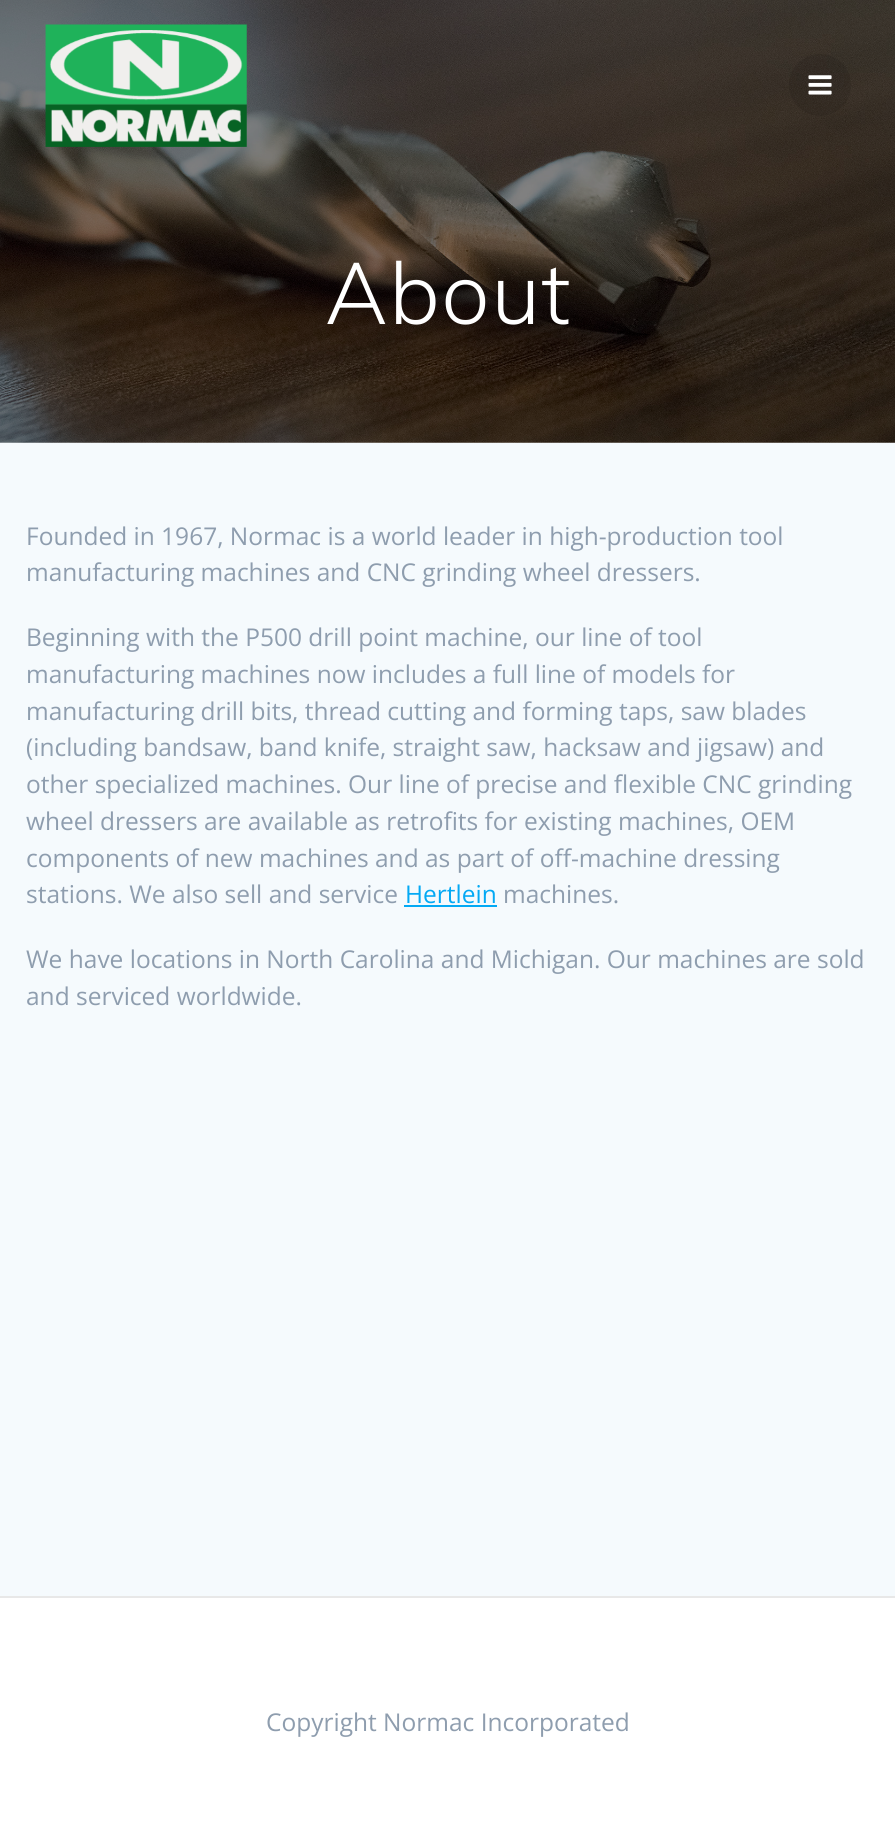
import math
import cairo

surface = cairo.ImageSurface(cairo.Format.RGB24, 895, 1842)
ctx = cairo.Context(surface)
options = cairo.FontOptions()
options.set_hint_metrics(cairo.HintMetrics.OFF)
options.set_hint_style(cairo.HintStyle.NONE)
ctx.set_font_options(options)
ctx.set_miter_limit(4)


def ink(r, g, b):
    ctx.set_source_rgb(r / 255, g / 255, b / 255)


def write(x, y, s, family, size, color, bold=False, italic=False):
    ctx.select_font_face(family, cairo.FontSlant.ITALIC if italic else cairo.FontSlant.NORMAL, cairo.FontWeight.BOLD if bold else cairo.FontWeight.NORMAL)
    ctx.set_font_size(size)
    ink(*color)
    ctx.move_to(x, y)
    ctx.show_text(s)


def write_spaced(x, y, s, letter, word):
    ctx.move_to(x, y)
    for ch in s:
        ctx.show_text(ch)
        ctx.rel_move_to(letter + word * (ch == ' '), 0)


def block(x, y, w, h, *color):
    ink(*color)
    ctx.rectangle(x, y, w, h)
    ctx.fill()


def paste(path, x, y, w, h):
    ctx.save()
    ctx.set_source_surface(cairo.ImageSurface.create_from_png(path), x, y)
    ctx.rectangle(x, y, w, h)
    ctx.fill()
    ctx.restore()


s1 = dict(family="Open Sans", size=24.5, color=(142, 157, 174))
s2 = dict(family="Open Sans", size=24.5, color=(3, 169, 244))

ink(255, 255, 255)
ctx.paint()
paste("pic3.png", 0, 0, 895, 443)
paste("pic1.png", 45, 24, 202, 123)
ctx.set_source_rgba(0, 0, 0, 0.1)
ctx.arc(820, 85, 31, 0, 2 * math.pi)
ctx.fill()
paste("pic2.png", 808, 75, 24, 20)
ctx.select_font_face("Muli Light")
ctx.set_font_size(86)
ink(255, 255, 255)
write_spaced(325, 324, "About", 1.5, 0)
block(0, 443, 895, 1153, 245, 250, 253)
write(26, 545, "Founded in 1967, Normac is a world leader in high-production tool", **s1)
write(26, 581, "manufacturing machines and CNC grinding wheel dressers.", **s1)
write(26, 646, "Beginning with the P500 drill point machine, our line of tool", **s1)
write(26, 683, "manufacturing machines now includes a full line of models for", **s1)
write(26, 720, "manufacturing drill bits, thread cutting and forming taps, saw blades", **s1)
write(26, 756, "(including bandsaw, band knife, straight saw, hacksaw and jigsaw) and", **s1)
write(26, 793, "other specialized machines. Our line of precise and flexible CNC grinding", **s1)
write(26, 830, "wheel dressers are available as retrofits for existing machines, OEM", **s1)
write(26, 867, "components of new machines and as part of off-machine dressing", **s1)
write(26, 903, "stations. We also sell and service", **s1)
write(405, 903, "Hertlein", **s2)
block(404, 905, 93, 2, 3, 169, 244)
write(503, 903, "machines.", **s1)
write(26, 968, "We have locations in North Carolina and Michigan. Our machines are sold", **s1)
write(26, 1005, "and serviced worldwide.", **s1)
block(0, 1596, 895, 2, 232, 232, 232)
write(266, 1731, "Copyright Normac Incorporated", **s1)
surface.write_to_png("screenshot.png")
